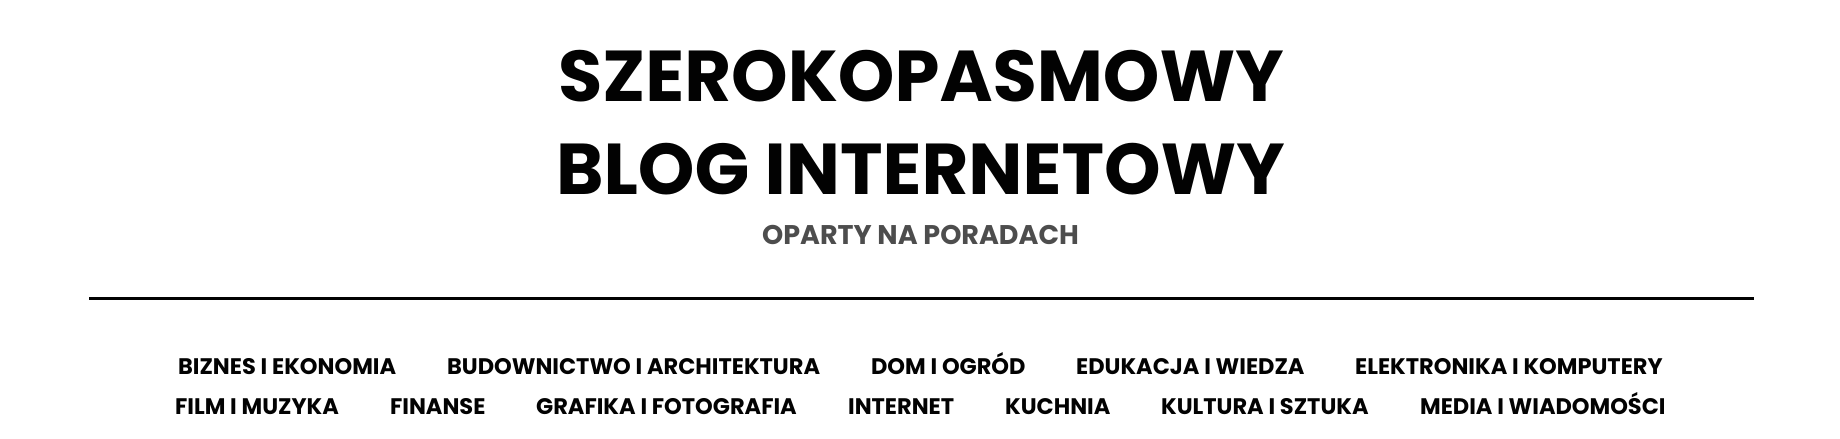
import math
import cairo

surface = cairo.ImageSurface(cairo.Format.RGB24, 1840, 439)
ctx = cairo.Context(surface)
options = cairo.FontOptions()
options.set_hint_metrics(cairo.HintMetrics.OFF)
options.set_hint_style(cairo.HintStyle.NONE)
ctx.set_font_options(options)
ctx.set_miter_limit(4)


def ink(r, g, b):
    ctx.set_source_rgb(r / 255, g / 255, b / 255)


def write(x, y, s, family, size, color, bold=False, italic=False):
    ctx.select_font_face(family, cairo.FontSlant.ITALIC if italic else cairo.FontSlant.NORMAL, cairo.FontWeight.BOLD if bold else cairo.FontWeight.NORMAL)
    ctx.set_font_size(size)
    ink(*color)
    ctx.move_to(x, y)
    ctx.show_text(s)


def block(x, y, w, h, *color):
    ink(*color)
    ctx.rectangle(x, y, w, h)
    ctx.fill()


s1 = dict(family="Poppins", size=72, color=(2, 2, 2), bold=True)
s2 = dict(family="Poppins", size=27, color=(77, 77, 77), bold=True)
s3 = dict(family="Poppins", size=22.5, color=(2, 2, 2), bold=True)

ink(255, 255, 255)
ctx.paint()
write(558, 101, "SZEROKOPASMOWY", **s1)
write(556, 194, "BLOG INTERNETOWY", **s1)
write(762, 244, "OPARTY NA PORADACH", **s2)
block(89, 297, 1665, 3, 2, 2, 2)
write(178, 374, "BIZNES I EKONOMIA", **s3)
write(447, 374, "BUDOWNICTWO I ARCHITEKTURA", **s3)
write(871, 374, "DOM I OGRÓD", **s3)
write(1076, 374, "EDUKACJA I WIEDZA", **s3)
write(1355, 374, "ELEKTRONIKA I KOMPUTERY", **s3)
write(175, 414, "FILM I MUZYKA", **s3)
write(390, 414, "FINANSE", **s3)
write(536, 414, "GRAFIKA I FOTOGRAFIA", **s3)
write(848, 414, "INTERNET", **s3)
write(1005, 414, "KUCHNIA", **s3)
write(1161, 414, "KULTURA I SZTUKA", **s3)
write(1420, 414, "MEDIA I WIADOMOŚCI", **s3)
surface.write_to_png("screenshot.png")
